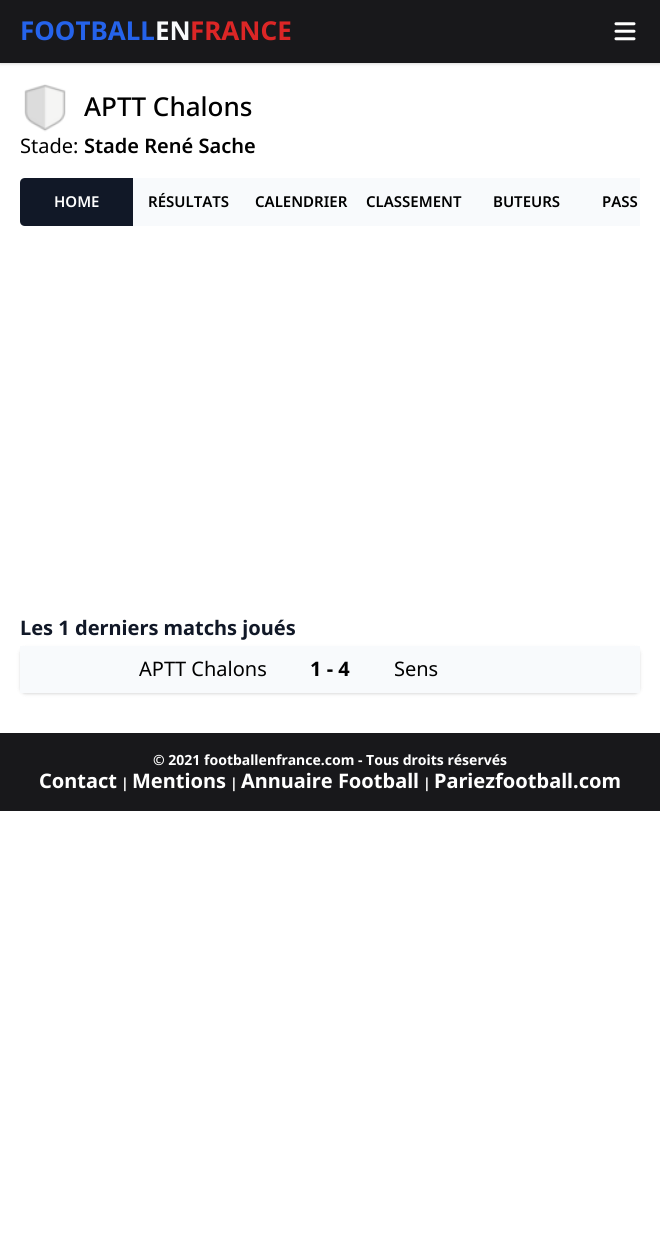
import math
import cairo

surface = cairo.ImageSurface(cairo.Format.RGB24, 660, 1250)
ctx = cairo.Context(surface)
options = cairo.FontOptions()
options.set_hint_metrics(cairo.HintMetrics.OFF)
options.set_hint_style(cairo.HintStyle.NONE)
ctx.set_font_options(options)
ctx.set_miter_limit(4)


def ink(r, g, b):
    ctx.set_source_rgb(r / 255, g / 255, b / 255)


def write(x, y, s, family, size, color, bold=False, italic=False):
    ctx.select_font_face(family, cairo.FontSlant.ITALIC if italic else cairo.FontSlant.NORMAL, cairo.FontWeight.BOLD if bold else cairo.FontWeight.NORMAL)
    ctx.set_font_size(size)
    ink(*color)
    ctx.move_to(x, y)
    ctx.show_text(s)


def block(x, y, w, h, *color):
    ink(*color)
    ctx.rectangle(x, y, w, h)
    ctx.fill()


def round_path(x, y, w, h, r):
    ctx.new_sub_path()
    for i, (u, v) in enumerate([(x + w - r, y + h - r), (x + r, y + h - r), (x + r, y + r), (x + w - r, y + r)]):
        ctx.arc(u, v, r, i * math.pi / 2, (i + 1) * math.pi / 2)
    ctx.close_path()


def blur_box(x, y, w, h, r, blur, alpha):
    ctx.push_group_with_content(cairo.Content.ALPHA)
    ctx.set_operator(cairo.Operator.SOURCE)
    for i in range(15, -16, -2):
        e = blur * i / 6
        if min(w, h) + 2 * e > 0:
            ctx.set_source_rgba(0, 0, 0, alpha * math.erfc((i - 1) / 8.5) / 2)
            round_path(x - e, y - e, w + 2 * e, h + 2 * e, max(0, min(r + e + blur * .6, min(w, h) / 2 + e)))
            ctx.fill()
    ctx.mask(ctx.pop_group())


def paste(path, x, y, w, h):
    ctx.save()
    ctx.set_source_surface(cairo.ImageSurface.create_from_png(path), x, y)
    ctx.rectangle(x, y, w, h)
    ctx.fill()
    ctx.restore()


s1 = dict(family="Noto Sans", size=26, color=(37, 99, 235), bold=True)
s2 = dict(family="Noto Sans", size=26, color=(248, 250, 252), bold=True)
s3 = dict(family="Noto Sans", size=26, color=(220, 38, 38), bold=True)
s4 = dict(family="Noto Sans Medium", size=26, color=(0, 0, 0))
s5 = dict(family="Noto Sans", size=20, color=(0, 0, 0))
s6 = dict(family="Noto Sans SemiBold", size=20, color=(0, 0, 0))
s7 = dict(family="Noto Sans SemiBold", size=15, color=(255, 255, 255))
s8 = dict(family="Noto Sans SemiBold", size=15, color=(0, 0, 0))
s9 = dict(family="Noto Sans", size=20, color=(17, 24, 39), bold=True)
s10 = dict(family="Noto Sans", size=20, color=(0, 0, 0), bold=True)
s11 = dict(family="Noto Sans", size=14, color=(255, 255, 255), bold=True)
s12 = dict(family="Noto Sans", size=20, color=(255, 255, 255), bold=True)

ink(255, 255, 255)
ctx.paint()
ink(0, 0, 0)
blur_box(0, 1, 660, 63, 0, 1, 0.06)
blur_box(0, 1, 660, 63, 0, 2, 0.1)
block(0, 0, 660, 63, 24, 24, 27)
write(20, 40, "FOOTBALL", **s1)
write(155, 40, "EN", **s2)
write(190, 40, "FRANCE", **s3)
paste("pic1.png", 614, 22, 22, 19)
paste("pic2.png", 24, 84, 42, 48)
write(84, 116, "APTT Chalons", **s4)
write(20, 153, "Stade:", **s5)
write(84, 153, "Stade René Sache", **s6)
ink(17, 24, 39)
ctx.new_path()
ctx.move_to(25, 178)
ctx.line_to(133, 178)
ctx.line_to(133, 226)
ctx.line_to(25, 226)
ctx.curve_to(22, 226, 20, 224, 20, 221)
ctx.line_to(20, 183)
ctx.curve_to(20, 180, 22, 178, 25, 178)
ctx.close_path()
ctx.fill()
write(54, 207, "HOME", **s7)
block(133, 178, 507, 48, 248, 250, 252)
write(148, 207, "RÉSULTATS", **s8)
write(255, 207, "CALENDRIER", **s8)
write(366, 207, "CLASSEMENT", **s8)
write(493, 207, "BUTEURS", **s8)
write(602, 207, "PASS", **s8)
write(20, 635, "Les 1 derniers matchs joués", **s9)
ink(0, 0, 0)
blur_box(20, 648, 620, 46, 6, 1, 0.06)
blur_box(20, 648, 620, 46, 6, 2, 0.1)
block(20, 646, 620, 47, 248, 250, 252)
write(139, 676, "APTT Chalons", **s5)
write(310, 676, "1 - 4", **s10)
write(394, 676, "Sens", **s5)
block(0, 733, 660, 78, 24, 24, 27)
write(153, 765, "© 2021 footballenfrance.com - Tous droits réservés", **s11)
write(39, 788, "Contact", **s12)
write(121, 788, "|", **s11)
write(132, 788, "Mentions", **s12)
write(230, 788, "|", **s11)
write(241, 788, "Annuaire Football", **s12)
write(423, 788, "|", **s11)
write(434, 788, "Pariezfootball.com", **s12)
surface.write_to_png("screenshot.png")
